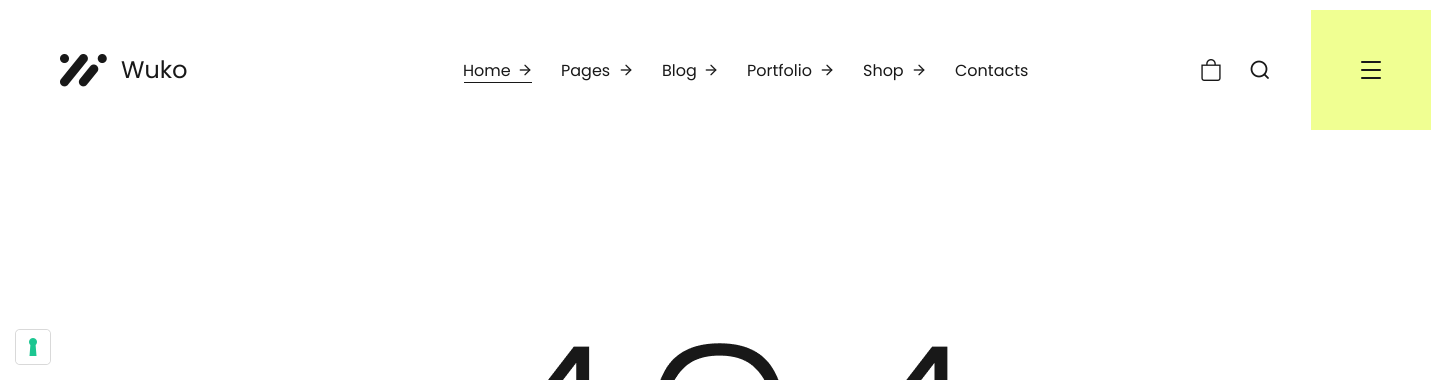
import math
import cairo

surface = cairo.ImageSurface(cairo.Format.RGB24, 1441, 380)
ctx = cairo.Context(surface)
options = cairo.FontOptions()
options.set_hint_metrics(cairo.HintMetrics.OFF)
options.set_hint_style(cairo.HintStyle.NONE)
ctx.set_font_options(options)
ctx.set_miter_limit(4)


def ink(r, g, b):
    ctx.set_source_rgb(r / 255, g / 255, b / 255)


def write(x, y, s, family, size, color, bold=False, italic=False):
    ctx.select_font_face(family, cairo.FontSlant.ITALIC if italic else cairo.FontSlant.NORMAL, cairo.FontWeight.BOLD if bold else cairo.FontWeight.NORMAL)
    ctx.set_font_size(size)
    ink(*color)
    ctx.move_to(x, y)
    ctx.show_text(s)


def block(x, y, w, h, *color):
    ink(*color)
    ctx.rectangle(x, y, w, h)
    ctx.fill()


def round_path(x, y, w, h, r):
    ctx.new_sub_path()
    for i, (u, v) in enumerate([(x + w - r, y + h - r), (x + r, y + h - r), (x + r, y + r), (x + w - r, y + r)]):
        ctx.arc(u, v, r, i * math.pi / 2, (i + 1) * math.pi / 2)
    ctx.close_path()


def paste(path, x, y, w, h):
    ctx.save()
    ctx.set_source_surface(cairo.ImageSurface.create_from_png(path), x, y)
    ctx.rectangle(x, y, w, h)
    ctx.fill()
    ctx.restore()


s1 = dict(family="Poppins", size=16, color=(24, 24, 24))

ink(255, 255, 255)
ctx.paint()
paste("pic1.png", 60, 54, 127, 33)
write(463, 76, "Home", **s1)
paste("pic2.png", 519, 64, 12, 12)
write(561, 76, "Pages", **s1)
paste("pic2.png", 620, 64, 12, 12)
write(662, 76, "Blog", **s1)
paste("pic2.png", 705, 64, 12, 12)
write(747, 76, "Portfolio", **s1)
paste("pic2.png", 821, 64, 12, 12)
write(863, 76, "Shop", **s1)
paste("pic2.png", 913, 64, 12, 12)
write(955, 76, "Contacts", **s1)
block(464, 82, 68, 1, 24, 24, 24)
paste("pic3.png", 1201, 59, 20, 22)
ctx.arc(1259, 69, 7.5, 0, 2 * math.pi)
ctx.set_line_width(1.8)
ctx.stroke()
ctx.new_path()
ctx.move_to(1268, 78)
ctx.line_to(1264.5, 74.5)
ctx.set_line_cap(cairo.LineCap.ROUND)
ctx.set_line_join(cairo.LineJoin.ROUND)
ctx.stroke()
block(1311, 10, 120, 120, 240, 255, 146)
ink(24, 24, 24)
round_path(1361, 61, 20, 2, 1)
ctx.fill()
round_path(1361, 69, 20, 2, 1)
ctx.fill()
round_path(1361, 77, 20, 2, 1)
ctx.fill()
round_path(15.5, 329.5, 35, 35, 4.5)
ink(217, 217, 217)
ctx.set_line_width(1)
ctx.set_line_cap(cairo.LineCap.BUTT)
ctx.set_line_join(cairo.LineJoin.MITER)
ctx.stroke()
ink(255, 255, 255)
round_path(16, 330, 34, 34, 4)
ctx.fill()
paste("pic4.png", 29, 338, 8, 18)
paste("pic5.png", 548, 343, 400, 37)
surface.write_to_png("screenshot.png")
